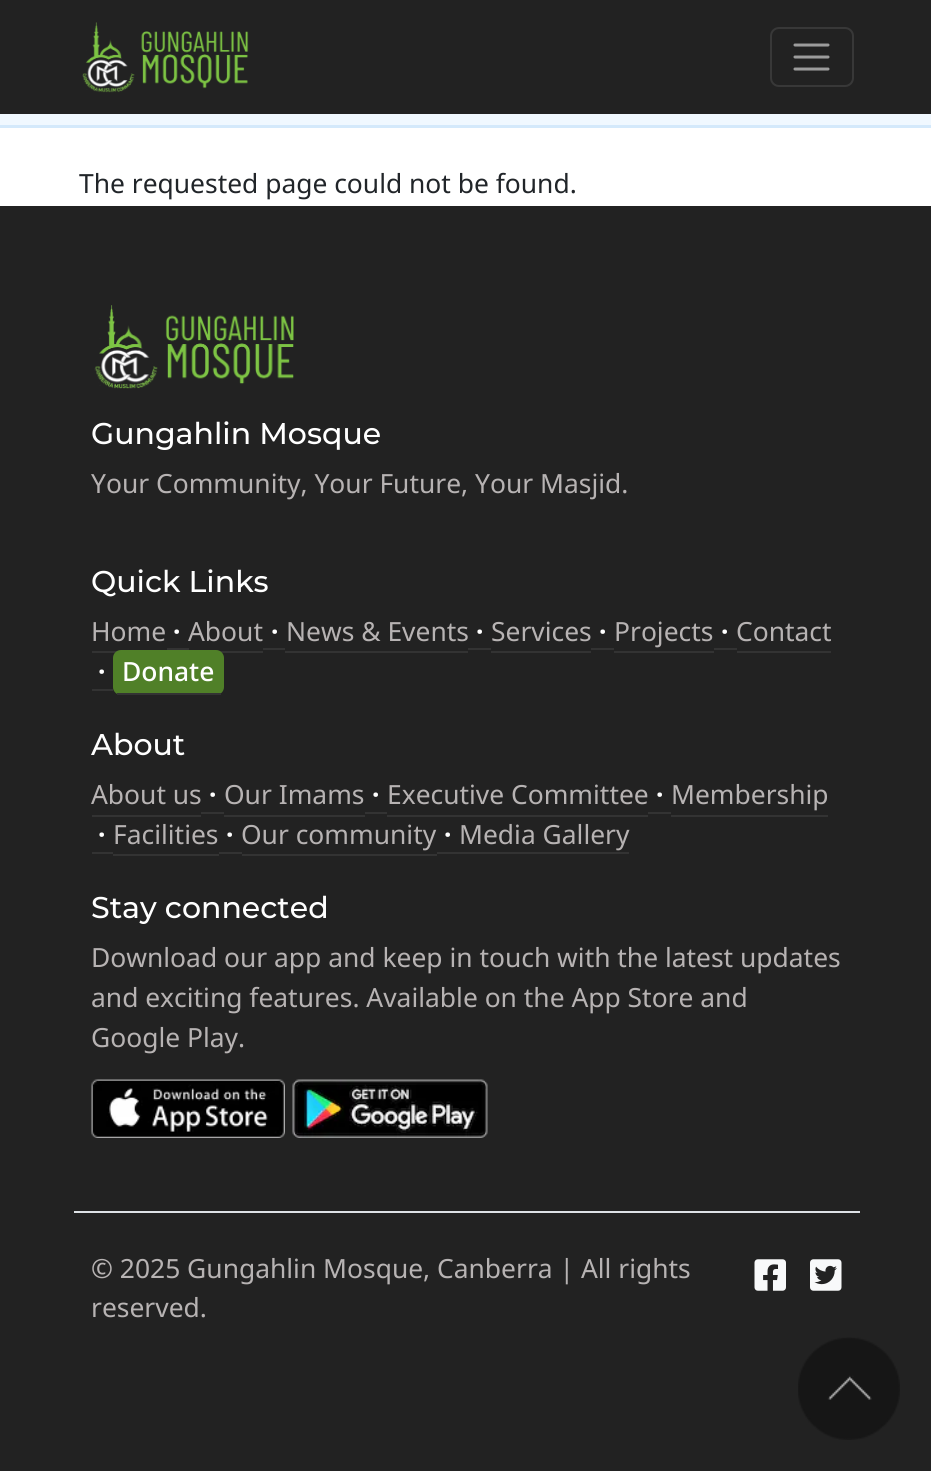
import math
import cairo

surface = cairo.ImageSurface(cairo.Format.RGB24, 931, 1471)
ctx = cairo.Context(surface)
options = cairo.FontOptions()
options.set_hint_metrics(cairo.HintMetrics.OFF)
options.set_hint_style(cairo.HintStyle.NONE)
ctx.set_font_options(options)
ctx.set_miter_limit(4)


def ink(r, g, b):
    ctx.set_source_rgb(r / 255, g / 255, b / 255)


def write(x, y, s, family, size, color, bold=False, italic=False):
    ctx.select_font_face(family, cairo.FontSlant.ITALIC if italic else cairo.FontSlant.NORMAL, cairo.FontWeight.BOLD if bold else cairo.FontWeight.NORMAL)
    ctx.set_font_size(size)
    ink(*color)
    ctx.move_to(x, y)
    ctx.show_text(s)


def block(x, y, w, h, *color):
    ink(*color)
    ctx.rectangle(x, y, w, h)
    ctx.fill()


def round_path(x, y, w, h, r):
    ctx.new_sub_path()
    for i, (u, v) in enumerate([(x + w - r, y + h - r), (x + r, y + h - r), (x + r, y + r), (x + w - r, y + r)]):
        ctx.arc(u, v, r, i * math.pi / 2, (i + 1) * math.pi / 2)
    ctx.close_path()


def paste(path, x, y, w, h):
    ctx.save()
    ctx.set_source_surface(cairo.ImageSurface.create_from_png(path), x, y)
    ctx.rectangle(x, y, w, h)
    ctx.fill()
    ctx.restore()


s1 = dict(family="Noto Sans", size=26.4, color=(33, 37, 41))
s2 = dict(family="Montserrat Medium", size=30, color=(255, 255, 255))
s3 = dict(family="Noto Sans", size=26.4, color=(183, 179, 179))
s4 = dict(family="Noto Sans", size=26.4, color=(255, 255, 255), bold=True)
s5 = dict(family="Noto Sans Medium", size=26.4, color=(255, 255, 255))

ink(255, 255, 255)
ctx.paint()
block(0, 0, 931, 114, 34, 34, 34)
paste("pic1.png", 82, 22, 167, 71)
round_path(771, 28, 82, 58, 8)
ink(56, 56, 56)
ctx.stroke()
ctx.new_path()
ctx.move_to(795, 45)
ctx.line_to(828, 45)
ctx.move_to(795, 57)
ctx.line_to(828, 57)
ctx.move_to(795, 69)
ctx.line_to(828, 69)
ink(156, 156, 156)
ctx.set_line_width(3)
ctx.set_line_cap(cairo.LineCap.ROUND)
ctx.stroke()
block(0, 114, 931, 11, 240, 248, 255)
block(0, 125, 931, 3, 212, 233, 251)
write(79, 193, "The requested page could not be found.", **s1)
block(0, 206, 931, 1265, 34, 34, 34)
paste("pic2.png", 94, 305, 200, 84)
write(91, 444, "Gungahlin Mosque", **s2)
write(91, 493, "Your Community, Your Future, Your Masjid.", **s3)
write(91, 592, "Quick Links", **s2)
block(219, 651, 44, 2, 51, 51, 51)
block(263, 648, 22, 2, 51, 51, 51)
write(188, 641, "About", **s3)
write(271, 641, "·", **s4)
block(737, 651, 94, 2, 51, 51, 51)
block(92, 689, 21, 2, 51, 51, 51)
write(736, 641, "Contact", **s3)
write(98, 681, "·", **s4)
block(92, 651, 26, 2, 51, 51, 51)
block(167, 648, 22, 2, 51, 51, 51)
write(91, 641, "Home", **s3)
write(173, 641, "·", **s4)
block(285, 651, 183, 2, 51, 51, 51)
block(468, 648, 23, 2, 51, 51, 51)
write(286, 641, "News & Events", **s3)
write(476, 641, "·", **s4)
block(491, 651, 100, 2, 51, 51, 51)
block(591, 648, 23, 2, 51, 51, 51)
write(491, 641, "Services", **s3)
write(599, 641, "·", **s4)
block(614, 651, 100, 2, 51, 51, 51)
block(714, 648, 23, 2, 51, 51, 51)
write(614, 641, "Projects", **s3)
write(721, 641, "·", **s4)
ink(80, 128, 40)
round_path(113, 650, 111, 45, 8)
ctx.fill()
block(117, 693, 104, 2, 51, 51, 51)
write(122, 681, "Donate", **s5)
write(91, 755, "About", **s2)
block(92, 815, 109, 2, 51, 51, 51)
block(201, 812, 23, 2, 51, 51, 51)
write(91, 804, "About us", **s3)
write(209, 804, "·", **s4)
block(671, 815, 157, 2, 51, 51, 51)
block(92, 852, 21, 2, 51, 51, 51)
write(671, 804, "Membership", **s3)
write(98, 844, "·", **s4)
block(224, 815, 141, 2, 51, 51, 51)
block(365, 812, 22, 2, 51, 51, 51)
write(224, 804, "Our Imams", **s3)
write(372, 804, "·", **s4)
block(387, 815, 261, 2, 51, 51, 51)
block(648, 812, 23, 2, 51, 51, 51)
write(387, 804, "Executive Committee", **s3)
write(656, 804, "·", **s4)
block(113, 854, 106, 2, 51, 51, 51)
block(219, 852, 23, 2, 51, 51, 51)
write(113, 844, "Facilities", **s3)
write(226, 844, "·", **s4)
block(242, 854, 195, 2, 51, 51, 51)
block(437, 852, 192, 2, 51, 51, 51)
write(241, 844, "Our community", **s3)
write(444, 844, "·", **s4)
write(459, 844, "Media Gallery", **s3)
write(91, 918, "Stay connected", **s2)
write(91, 967, "Download our app and keep in touch with the latest updates", **s3)
write(91, 1007, "and exciting features. Available on the App Store and", **s3)
write(91, 1047, "Google Play.", **s3)
paste("pic3.png", 91, 1079, 194, 59)
paste("pic4.png", 292, 1079, 196, 59)
block(74, 1211, 786, 2, 222, 226, 230)
write(91, 1278, "© 2025 Gungahlin Mosque, Canberra | All rights", **s3)
write(91, 1317, "reserved.", **s3)
paste("pic5.png", 754, 1259, 32, 32)
paste("pic6.png", 810, 1259, 32, 32)
paste("pic7.png", 798, 1337, 102, 103)
surface.write_to_png("screenshot.png")
